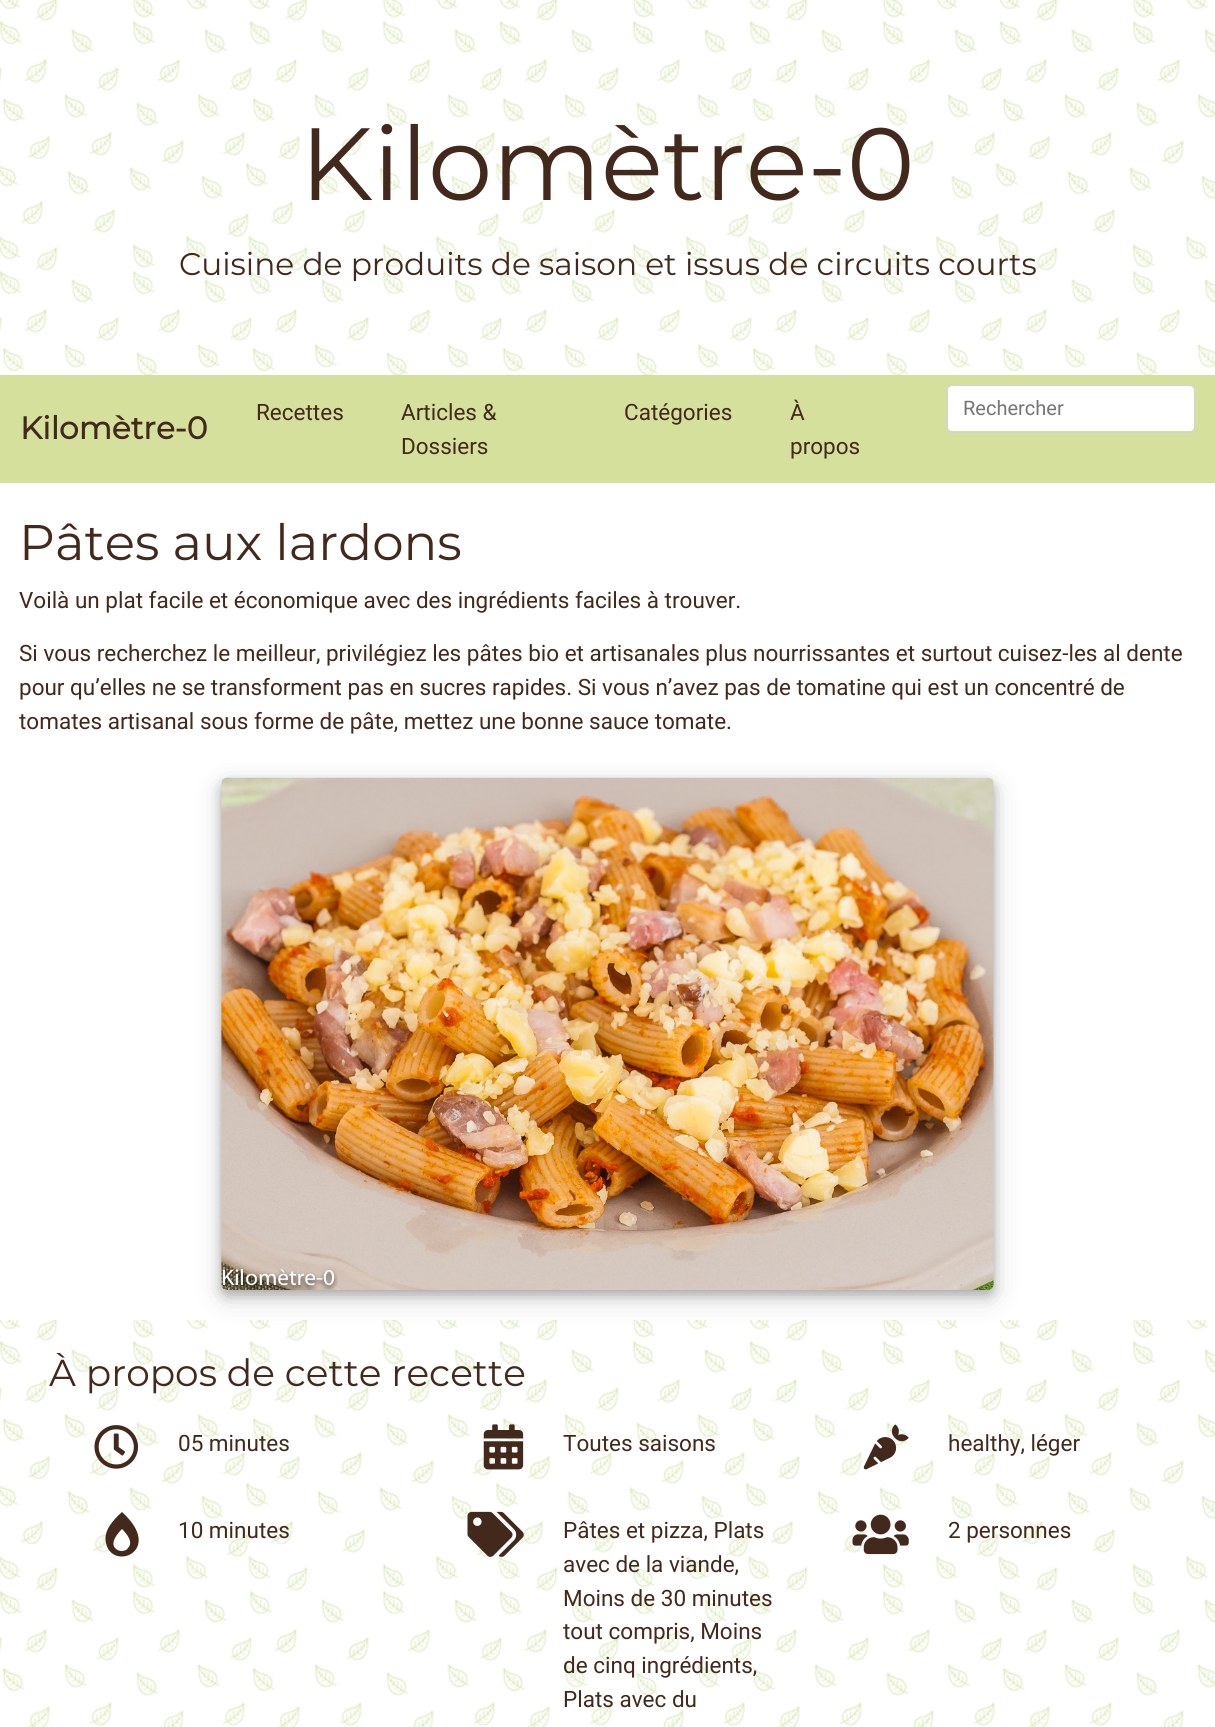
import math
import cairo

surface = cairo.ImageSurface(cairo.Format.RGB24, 1215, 1727)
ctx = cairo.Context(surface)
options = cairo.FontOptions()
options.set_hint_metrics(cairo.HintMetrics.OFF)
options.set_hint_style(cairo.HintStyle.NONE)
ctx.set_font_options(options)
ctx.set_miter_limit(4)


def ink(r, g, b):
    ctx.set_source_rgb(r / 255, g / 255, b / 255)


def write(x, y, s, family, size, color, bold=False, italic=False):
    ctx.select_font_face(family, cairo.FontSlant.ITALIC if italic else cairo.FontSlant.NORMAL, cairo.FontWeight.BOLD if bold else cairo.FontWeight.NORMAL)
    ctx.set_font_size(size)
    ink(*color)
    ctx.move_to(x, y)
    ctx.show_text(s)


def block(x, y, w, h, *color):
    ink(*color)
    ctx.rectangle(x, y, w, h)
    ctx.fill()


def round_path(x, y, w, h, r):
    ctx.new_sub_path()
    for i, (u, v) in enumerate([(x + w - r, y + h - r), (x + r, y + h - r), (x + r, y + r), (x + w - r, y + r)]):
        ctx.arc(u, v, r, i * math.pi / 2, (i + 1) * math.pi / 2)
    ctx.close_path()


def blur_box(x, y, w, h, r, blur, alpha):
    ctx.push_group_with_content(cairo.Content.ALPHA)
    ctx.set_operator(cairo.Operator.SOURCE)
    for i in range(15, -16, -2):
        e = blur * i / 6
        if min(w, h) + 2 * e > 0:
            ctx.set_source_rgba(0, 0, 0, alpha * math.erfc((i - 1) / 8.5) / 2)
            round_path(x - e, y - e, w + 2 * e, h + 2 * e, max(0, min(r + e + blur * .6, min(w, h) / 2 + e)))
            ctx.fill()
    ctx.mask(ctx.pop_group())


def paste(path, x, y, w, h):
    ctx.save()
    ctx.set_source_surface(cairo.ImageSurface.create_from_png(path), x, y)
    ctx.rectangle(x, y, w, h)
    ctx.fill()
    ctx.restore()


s1 = dict(family="Montserrat Thin", size=102.5, color=(67, 40, 28))
s2 = dict(family="Montserrat Thin", size=31.25, color=(67, 40, 28))
s3 = dict(family="Montserrat", size=31.25, color=(67, 40, 28), bold=True)
s4 = dict(family="Roboto", size=22.5, color=(67, 40, 28))
s5 = dict(family="Roboto", size=20, color=(117, 117, 117))
s6 = dict(family="Montserrat Thin", size=50, color=(67, 40, 28))
s7 = dict(family="Montserrat Thin", size=37.5, color=(67, 40, 28))

ink(255, 255, 255)
ctx.paint()
paste("pic1.png", 0, 0, 1215, 375)
write(300, 200, "Kilomètre-0", **s1)
write(179, 275, "Cuisine de produits de saison et issus de circuits courts", **s2)
block(0, 375, 1215, 108, 212, 224, 155)
write(20, 439, "Kilomètre-0", **s3)
write(256, 420, "Recettes", **s4)
write(401, 420, "Articles &", **s4)
write(401, 454, "Dossiers", **s4)
write(624, 420, "Catégories", **s4)
write(790, 420, "À", **s4)
write(790, 454, "propos", **s4)
ink(255, 255, 255)
round_path(948, 386, 246, 45, 4)
ctx.fill()
round_path(946.5, 385.5, 248, 47, 4.5)
ink(206, 212, 218)
ctx.set_line_width(1)
ctx.stroke()
write(963, 415, "Rechercher", **s5)
write(19, 560, "Pâtes aux lardons", **s6)
write(19, 608, "Voilà un plat facile et économique avec des ingrédients faciles à trouver.", **s4)
write(19, 661, "Si vous recherchez le meilleur, privilégiez les pâtes bio et artisanales plus nourrissantes et surtout cuisez-les al dente", **s4)
write(19, 695, "pour qu’elles ne se transforment pas en sucres rapides. Si vous n’avez pas de tomatine qui est un concentré de", **s4)
write(19, 729, "tomates artisanal sous forme de pâte, mettez une bonne sauce tomate.", **s4)
paste("pic3.png", 0, 1320, 1215, 407)
ink(0, 0, 0)
blur_box(221, 785, 773, 513, 6, 12.5, 0.19)
blur_box(221, 783, 773, 512, 6, 5, 0.2)
paste("pic2.png", 221, 777, 773, 513)
write(49, 1386, "À propos de cette recette", **s7)
paste("pic4.png", 94, 1425, 45, 44)
write(178, 1451, "05 minutes", **s4)
ctx.new_path()
ctx.move_to(122, 1512)
ctx.curve_to(113, 1520, 103, 1531, 106, 1543)
ctx.curve_to(112, 1572, 165, 1551, 122, 1512)
ctx.close_path()
ctx.move_to(122, 1551)
ctx.curve_to(119, 1551, 117, 1550, 115, 1548)
ctx.curve_to(110, 1542, 118, 1533, 122, 1529)
ctx.curve_to(126, 1533, 134, 1542, 128, 1548)
ctx.curve_to(127, 1550, 124, 1551, 122, 1551)
ctx.close_path()
ctx.fill()
write(178, 1538, "10 minutes", **s4)
paste("pic5.png", 483, 1424, 41, 46)
write(563, 1451, "Toutes saisons", **s4)
paste("pic6.png", 467, 1511, 57, 46)
write(563, 1538, "Pâtes et pizza, Plats", **s4)
write(563, 1572, "avec de la viande,", **s4)
write(563, 1606, "Moins de 30 minutes", **s4)
write(563, 1639, "tout compris, Moins", **s4)
write(563, 1673, "de cinq ingrédients,", **s4)
write(563, 1707, "Plats avec du", **s4)
paste("pic7.png", 863, 1424, 46, 46)
write(948, 1451, "healthy, léger", **s4)
paste("pic8.png", 852, 1514, 57, 41)
write(948, 1538, "2 personnes", **s4)
surface.write_to_png("screenshot.png")
